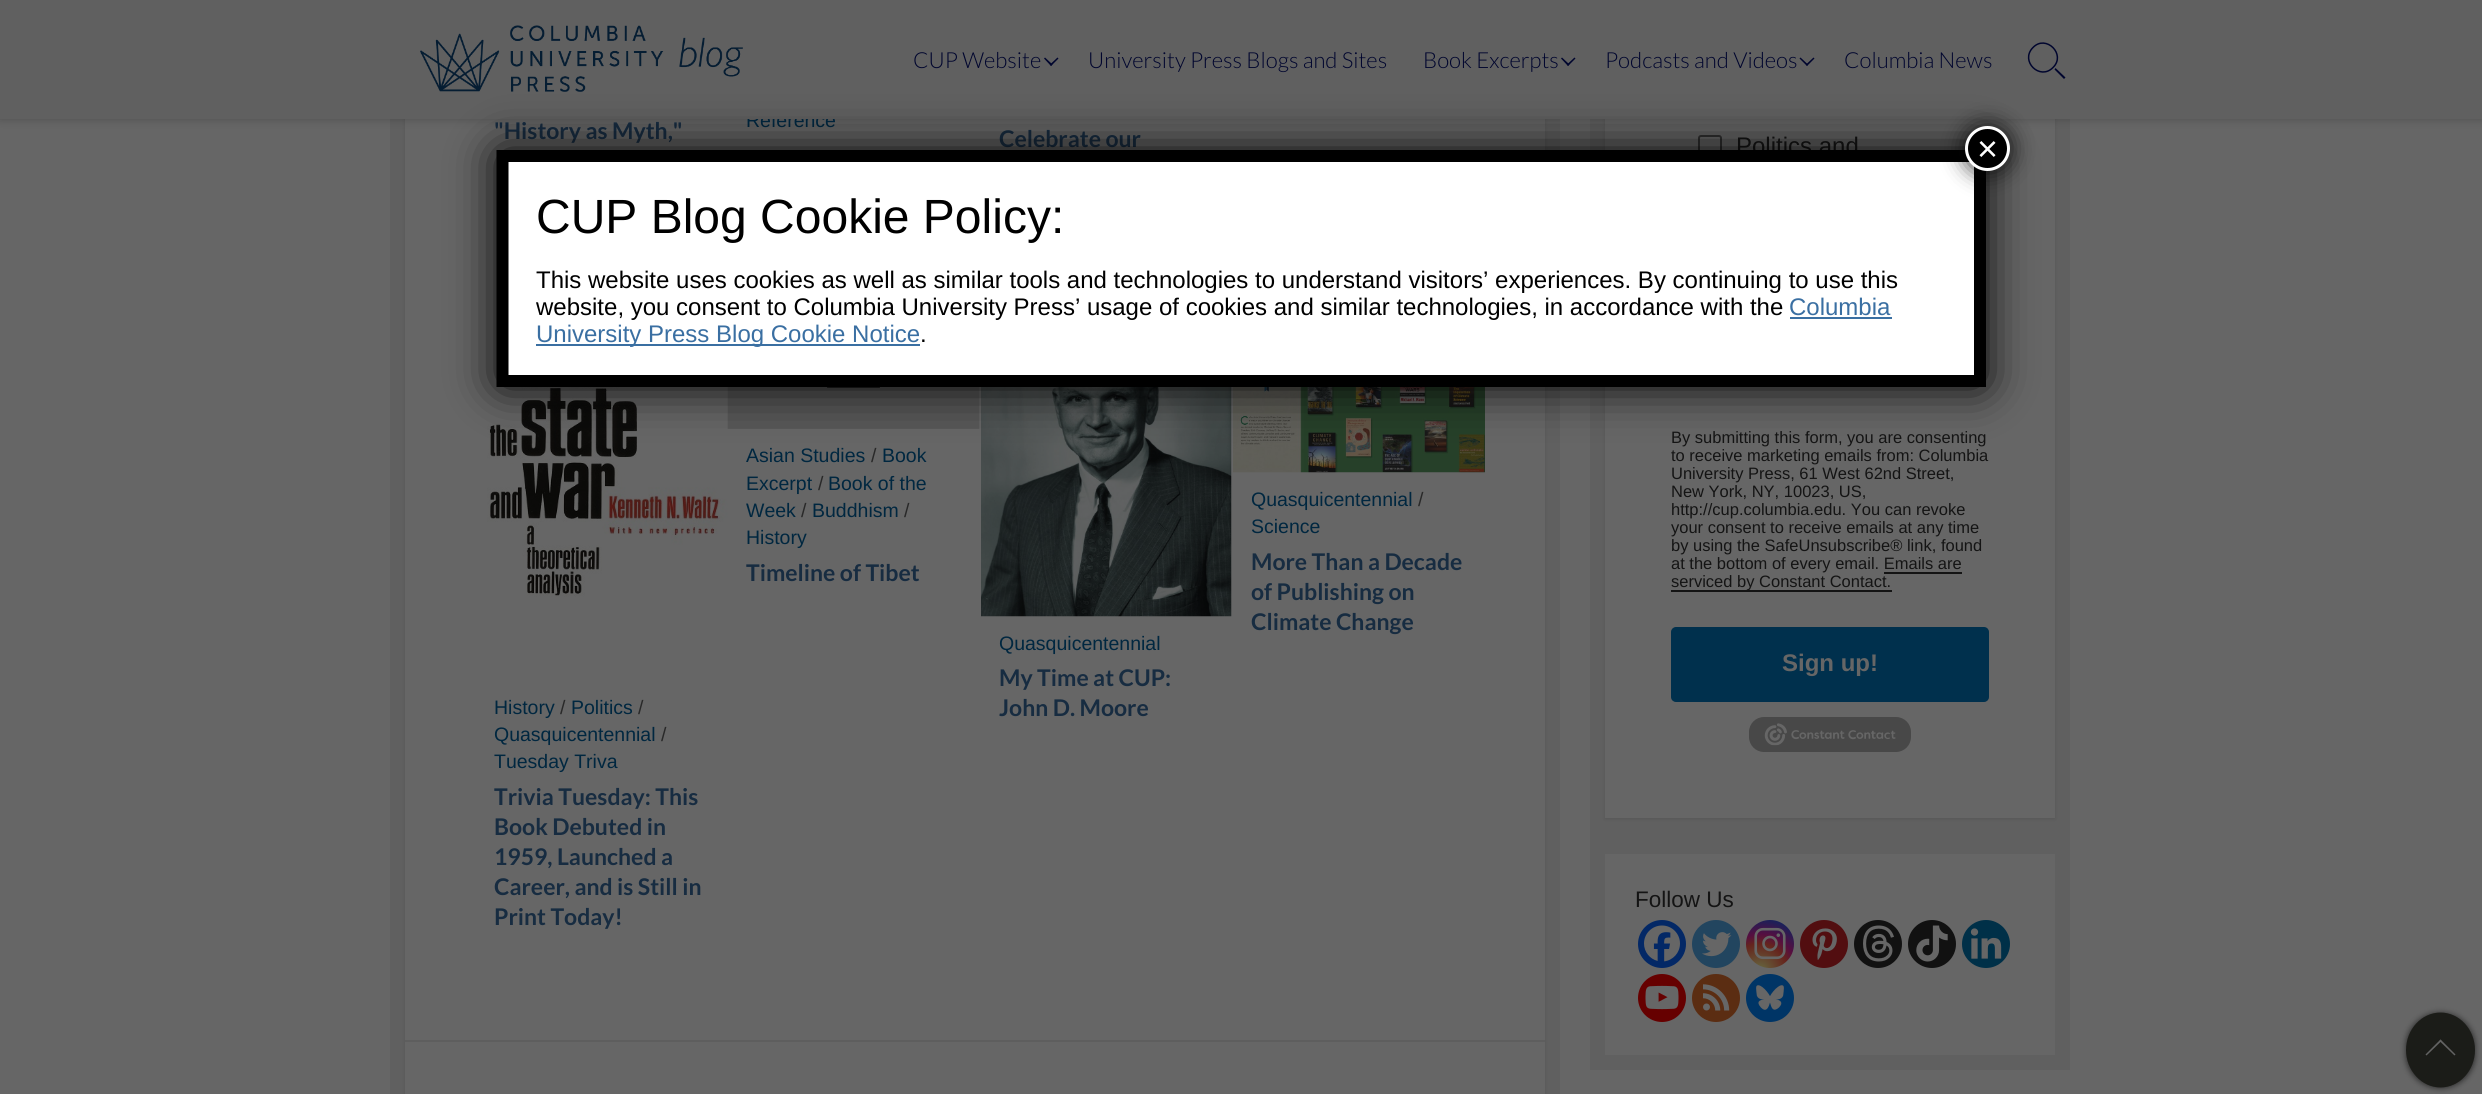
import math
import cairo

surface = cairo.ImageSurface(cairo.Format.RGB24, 2482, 1094)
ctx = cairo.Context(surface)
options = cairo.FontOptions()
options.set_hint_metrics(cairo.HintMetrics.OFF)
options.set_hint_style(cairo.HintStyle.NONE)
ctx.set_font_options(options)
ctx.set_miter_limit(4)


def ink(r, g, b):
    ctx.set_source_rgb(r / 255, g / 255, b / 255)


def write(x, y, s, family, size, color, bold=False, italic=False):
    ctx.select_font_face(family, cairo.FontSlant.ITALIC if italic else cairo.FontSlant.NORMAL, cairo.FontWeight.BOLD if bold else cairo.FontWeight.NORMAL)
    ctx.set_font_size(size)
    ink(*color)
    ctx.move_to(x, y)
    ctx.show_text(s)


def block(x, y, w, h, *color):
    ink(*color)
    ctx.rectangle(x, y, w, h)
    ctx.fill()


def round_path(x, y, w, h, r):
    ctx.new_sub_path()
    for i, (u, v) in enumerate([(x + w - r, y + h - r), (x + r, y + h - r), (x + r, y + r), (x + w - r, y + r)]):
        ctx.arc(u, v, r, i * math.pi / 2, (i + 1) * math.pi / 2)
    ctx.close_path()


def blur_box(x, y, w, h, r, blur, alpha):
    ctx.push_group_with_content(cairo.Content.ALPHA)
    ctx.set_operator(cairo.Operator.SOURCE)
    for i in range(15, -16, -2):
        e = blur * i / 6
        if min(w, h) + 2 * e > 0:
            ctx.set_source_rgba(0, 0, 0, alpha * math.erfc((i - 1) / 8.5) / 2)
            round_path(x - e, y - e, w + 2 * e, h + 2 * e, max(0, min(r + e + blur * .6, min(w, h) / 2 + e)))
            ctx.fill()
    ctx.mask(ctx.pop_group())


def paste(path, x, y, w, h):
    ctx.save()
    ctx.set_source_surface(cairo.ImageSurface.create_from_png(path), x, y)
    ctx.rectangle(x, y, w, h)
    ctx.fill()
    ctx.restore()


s1 = dict(family="Liberation Sans", size=19.5, color=(0, 39, 64))
s2 = dict(family="Lato Light", size=22.1, color=(0, 5, 46))
s3 = dict(family="Lato", size=23, color=(23, 44, 65), bold=True)
s4 = dict(family="Liberation Sans", size=19.5, color=(41, 41, 41))
s5 = dict(family="Liberation Sans", size=24, color=(20, 20, 20))
s6 = dict(family="Liberation Sans", size=16.5, color=(20, 20, 20))
s7 = dict(family="Liberation Sans", size=24, color=(102, 102, 102), bold=True)
s8 = dict(family="Liberation Sans", size=22.5, color=(20, 20, 20))
s9 = dict(family="Liberation Sans", size=36, color=(255, 255, 255))
s10 = dict(family="Liberation Sans", size=48, color=(0, 0, 0))
s11 = dict(family="Liberation Sans", size=24, color=(0, 0, 0))
s12 = dict(family="Liberation Sans", size=24, color=(58, 111, 162))

ink(102, 102, 102)
ctx.paint()
block(390, 119, 1170, 975, 96, 96, 96)
ink(0, 0, 0)
blur_box(405, -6, 1140, 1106, 0, 2, 0.1)
block(405, 119, 1140, 975, 102, 102, 102)
block(1590, 119, 480, 951, 96, 96, 96)
ink(0, 0, 0)
blur_box(1605, -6, 450, 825, 0, 2, 0.1)
block(1605, 119, 450, 699, 102, 102, 102)
ink(0, 0, 0)
blur_box(0, 2, 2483, 118, 0, 4.5, 0.2)
write(746, 127, "Reference", **s1)
block(0, 0, 2482, 119, 96, 96, 96)
paste("pic1.png", 420, 25, 323, 67)
write(913, 68, "CUP Website", **s2)
ctx.new_path()
ctx.move_to(1057.5, 57.5)
ctx.line_to(1058.5, 58.5)
ctx.line_to(1051, 66)
ctx.line_to(1050, 64.5)
ctx.close_path()
ctx.fill()
ctx.new_path()
ctx.move_to(1045, 57.5)
ctx.line_to(1052.5, 64.5)
ctx.line_to(1051, 66)
ctx.line_to(1044, 58.5)
ctx.close_path()
ctx.fill()
write(1088, 68, "University Press Blogs and Sites", **s2)
write(1423, 68, "Book Excerpts", **s2)
ctx.new_path()
ctx.move_to(1574.5, 57.5)
ctx.line_to(1575.5, 58.5)
ctx.line_to(1568, 66)
ctx.line_to(1567, 64.5)
ctx.close_path()
ctx.fill()
ctx.new_path()
ctx.move_to(1562, 57.5)
ctx.line_to(1569.5, 64.5)
ctx.line_to(1568, 66)
ctx.line_to(1561, 58.5)
ctx.close_path()
ctx.fill()
write(1605, 68, "Podcasts and Videos", **s2)
ctx.new_path()
ctx.move_to(1813.5, 57.5)
ctx.line_to(1814.5, 58.5)
ctx.line_to(1807, 66)
ctx.line_to(1806, 64.5)
ctx.close_path()
ctx.fill()
ctx.new_path()
ctx.move_to(1800.5, 57.5)
ctx.line_to(1808, 64.5)
ctx.line_to(1807, 66)
ctx.line_to(1799.5, 58.5)
ctx.close_path()
ctx.fill()
write(1844, 68, "Columbia News", **s2)
ctx.new_path()
ctx.move_to(2033, 47.5)
ctx.curve_to(2046, 34, 2066.5, 54.5, 2053, 67.5)
ctx.curve_to(2040, 81, 2019.5, 61, 2033, 47.5)
ctx.close_path()
ctx.set_line_width(1.5)
ctx.stroke()
ctx.new_path()
ctx.move_to(2054.5, 69.5)
ctx.line_to(2055.5, 68)
ctx.line_to(2065.5, 77.5)
ctx.line_to(2064, 79)
ctx.close_path()
ctx.fill()
block(405, 1040, 1140, 2, 94, 94, 94)
write(494, 139, "\"History as Myth,\"", **s3)
write(999, 147, "Celebrate our", **s3)
paste("pic5.png", 487, 303, 241, 294)
paste("pic2.png", 727, 387, 253, 42)
write(746, 462, "Asian Studies", **s1)
write(871, 462, "/", **s4)
write(882, 462, "Book", **s1)
write(746, 490, "Excerpt", **s1)
write(818, 490, "/", **s4)
write(828, 490, "Book of the", **s1)
write(746, 517, "Week", **s1)
write(801, 517, "/", **s4)
write(812, 517, "Buddhism", **s1)
write(904, 517, "/", **s4)
write(746, 544, "History", **s1)
write(746, 581, "Timeline of Tibet", **s3)
paste("pic3.png", 1233, 387, 252, 86)
write(1251, 506, "Quasquicentennial", **s1)
write(1418, 506, "/", **s4)
write(1251, 533, "Science", **s1)
write(1251, 570, "More Than a Decade", **s3)
write(1251, 600, "of Publishing on", **s3)
write(1251, 630, "Climate Change", **s3)
paste("pic4.png", 981, 387, 251, 230)
write(999, 650, "Quasquicentennial", **s1)
write(999, 686, "My Time at CUP:", **s3)
write(999, 716, "John D. Moore", **s3)
write(494, 714, "History", **s1)
write(560, 714, "/", **s4)
write(571, 714, "Politics", **s1)
write(638, 714, "/", **s4)
write(494, 741, "Quasquicentennial", **s1)
write(661, 741, "/", **s4)
write(494, 768, "Tuesday Triva", **s1)
write(494, 805, "Trivia Tuesday: This", **s3)
write(494, 835, "Book Debuted in", **s3)
write(494, 865, "1959, Launched a", **s3)
write(494, 895, "Career, and is Still in", **s3)
write(494, 925, "Print Today!", **s3)
round_path(1699, 136, 22, 22, 2)
ink(47, 47, 47)
ctx.set_line_width(2)
ctx.stroke()
write(1736, 154, "Politics and", **s5)
write(1671, 443, "By submitting this form, you are consenting", **s6)
write(1671, 461, "to receive marketing emails from: Columbia", **s6)
write(1671, 479, "University Press, 61 West 62nd Street,", **s6)
write(1671, 497, "New York, NY, 10023, US,", **s6)
write(1671, 515, "http://cup.columbia.edu. You can revoke", **s6)
write(1671, 533, "your consent to receive emails at any time", **s6)
write(1671, 551, "by using the SafeUnsubscribe® link, found", **s6)
write(1671, 569, "at the bottom of every email. Emails are", **s6)
block(1671, 590, 221, 2, 20, 20, 20)
write(1671, 587, "serviced by Constant Contact.", **s6)
block(1884, 572, 78, 2, 20, 20, 20)
ink(0, 48, 77)
round_path(1672, 628, 316, 73, 4)
ctx.fill_preserve()
ctx.stroke()
write(1782, 671, "Sign up!", **s7)
ink(72, 72, 72)
round_path(1749, 717, 162, 35, 15)
ctx.fill()
paste("pic6.png", 1764, 723, 132, 23)
block(1605, 854, 450, 201, 102, 102, 102)
write(1635, 907, "Follow Us", **s8)
ink(3, 40, 102)
ctx.new_path()
ctx.arc(1662, 944, 24, 0, 2 * math.pi)
ctx.fill()
paste("pic7.png", 1644, 925, 36, 37)
ink(34, 69, 95)
ctx.arc(1716, 944, 24, 0, 2 * math.pi)
ctx.fill()
paste("pic8.png", 1702, 932, 30, 25)
gradient = cairo.RadialGradient(1760, 971, 0, 1760, 971, 61)
gradient.add_color_stop_rgba(0, 0.396, 0.384, 0.235, 1)
gradient.add_color_stop_rgba(0.05, 0.396, 0.384, 0.235, 1)
gradient.add_color_stop_rgba(0.45, 0.396, 0.141, 0.114, 1)
gradient.add_color_stop_rgba(0.6, 0.337, 0.055, 0.251, 1)
gradient.add_color_stop_rgba(0.9, 0.063, 0.141, 0.369, 1)
ctx.set_source(gradient)
ctx.arc(1770, 944, 24, 0, 2 * math.pi)
ctx.fill()
paste("pic9.png", 1754, 927, 32, 33)
ink(82, 14, 16)
ctx.arc(1824, 944, 24, 0, 2 * math.pi)
ctx.fill()
paste("pic10.png", 1812, 928, 25, 32)
ink(17, 17, 17)
ctx.arc(1878, 944, 24, 0, 2 * math.pi)
ctx.fill()
paste("pic11.png", 1863, 925, 31, 37)
ctx.arc(1932, 944, 24, 0, 2 * math.pi)
ctx.fill()
paste("pic12.png", 1916, 925, 32, 37)
ink(0, 48, 72)
ctx.arc(1986, 944, 24, 0, 2 * math.pi)
ctx.fill()
paste("pic13.png", 1970, 928, 32, 31)
ink(102, 0, 0)
ctx.arc(1662, 998, 24, 0, 2 * math.pi)
ctx.fill()
paste("pic14.png", 1645, 985, 34, 25)
ink(91, 45, 18)
ctx.arc(1716, 998, 24, 0, 2 * math.pi)
ctx.fill()
paste("pic15.png", 1703, 984, 27, 27)
ink(0, 53, 102)
ctx.arc(1770, 998, 24, 0, 2 * math.pi)
ctx.fill()
paste("pic16.png", 1756, 985, 28, 25)
ink(2, 2, 2)
blur_box(497, 150, 1489, 237, 5, 22.5, 1)
block(508, 162, 1466, 213, 255, 255, 255)
ctx.new_path()
ctx.move_to(502.5, 156)
ctx.line_to(1980, 156)
ctx.line_to(1980, 381)
ctx.line_to(502.5, 381)
ctx.close_path()
ink(0, 0, 0)
ctx.set_line_width(12)
ctx.stroke()
ink(2, 2, 2)
blur_box(1964, 125, 48, 48, 24, 11, 0.75)
ink(0, 0, 0)
ctx.arc(1987.5, 148.5, 21, 0, 2 * math.pi)
ctx.fill_preserve()
ink(255, 255, 255)
ctx.set_line_width(3)
ctx.stroke()
write(1977, 161, "×", **s9)
write(536, 233, "CUP Blog Cookie Policy:", **s10)
write(536, 288, "This website uses cookies as well as similar tools and technologies to understand visitors’ experiences. By continuing to use this", **s11)
write(536, 315, "website, you consent to Columbia University Press’ usage of cookies and similar technologies, in accordance with the", **s11)
write(1789, 315, "Columbia", **s12)
block(1790, 317, 102, 2, 58, 111, 162)
block(536, 344, 384, 2, 58, 111, 162)
write(536, 342, "University Press Blog Cookie Notice", **s12)
write(920, 342, ".", **s11)
ink(0, 0, 0)
blur_box(2406, 1013, 69, 75, 34.5, 3, 0.6)
ink(27, 28, 24)
ctx.new_path()
ctx.move_to(2440.5, 1012.5)
ctx.curve_to(2459.5, 1012.5, 2475, 1029.5, 2475, 1050)
ctx.curve_to(2475, 1070.5, 2459.5, 1087.5, 2440.5, 1087.5)
ctx.curve_to(2421.5, 1087.5, 2406, 1070.5, 2406, 1050)
ctx.curve_to(2406, 1029.5, 2421.5, 1012.5, 2440.5, 1012.5)
ctx.close_path()
ctx.fill()
ink(99, 99, 99)
ctx.new_path()
ctx.move_to(2440.5, 1039.5)
ctx.line_to(2455.5, 1054.5)
ctx.line_to(2454.5, 1055.5)
ctx.line_to(2439.5, 1041)
ctx.close_path()
ctx.fill()
ctx.new_path()
ctx.move_to(2440.5, 1039.5)
ctx.line_to(2441.5, 1041)
ctx.line_to(2426.5, 1055.5)
ctx.line_to(2425.5, 1054.5)
ctx.close_path()
ctx.fill()
surface.write_to_png("screenshot.png")
